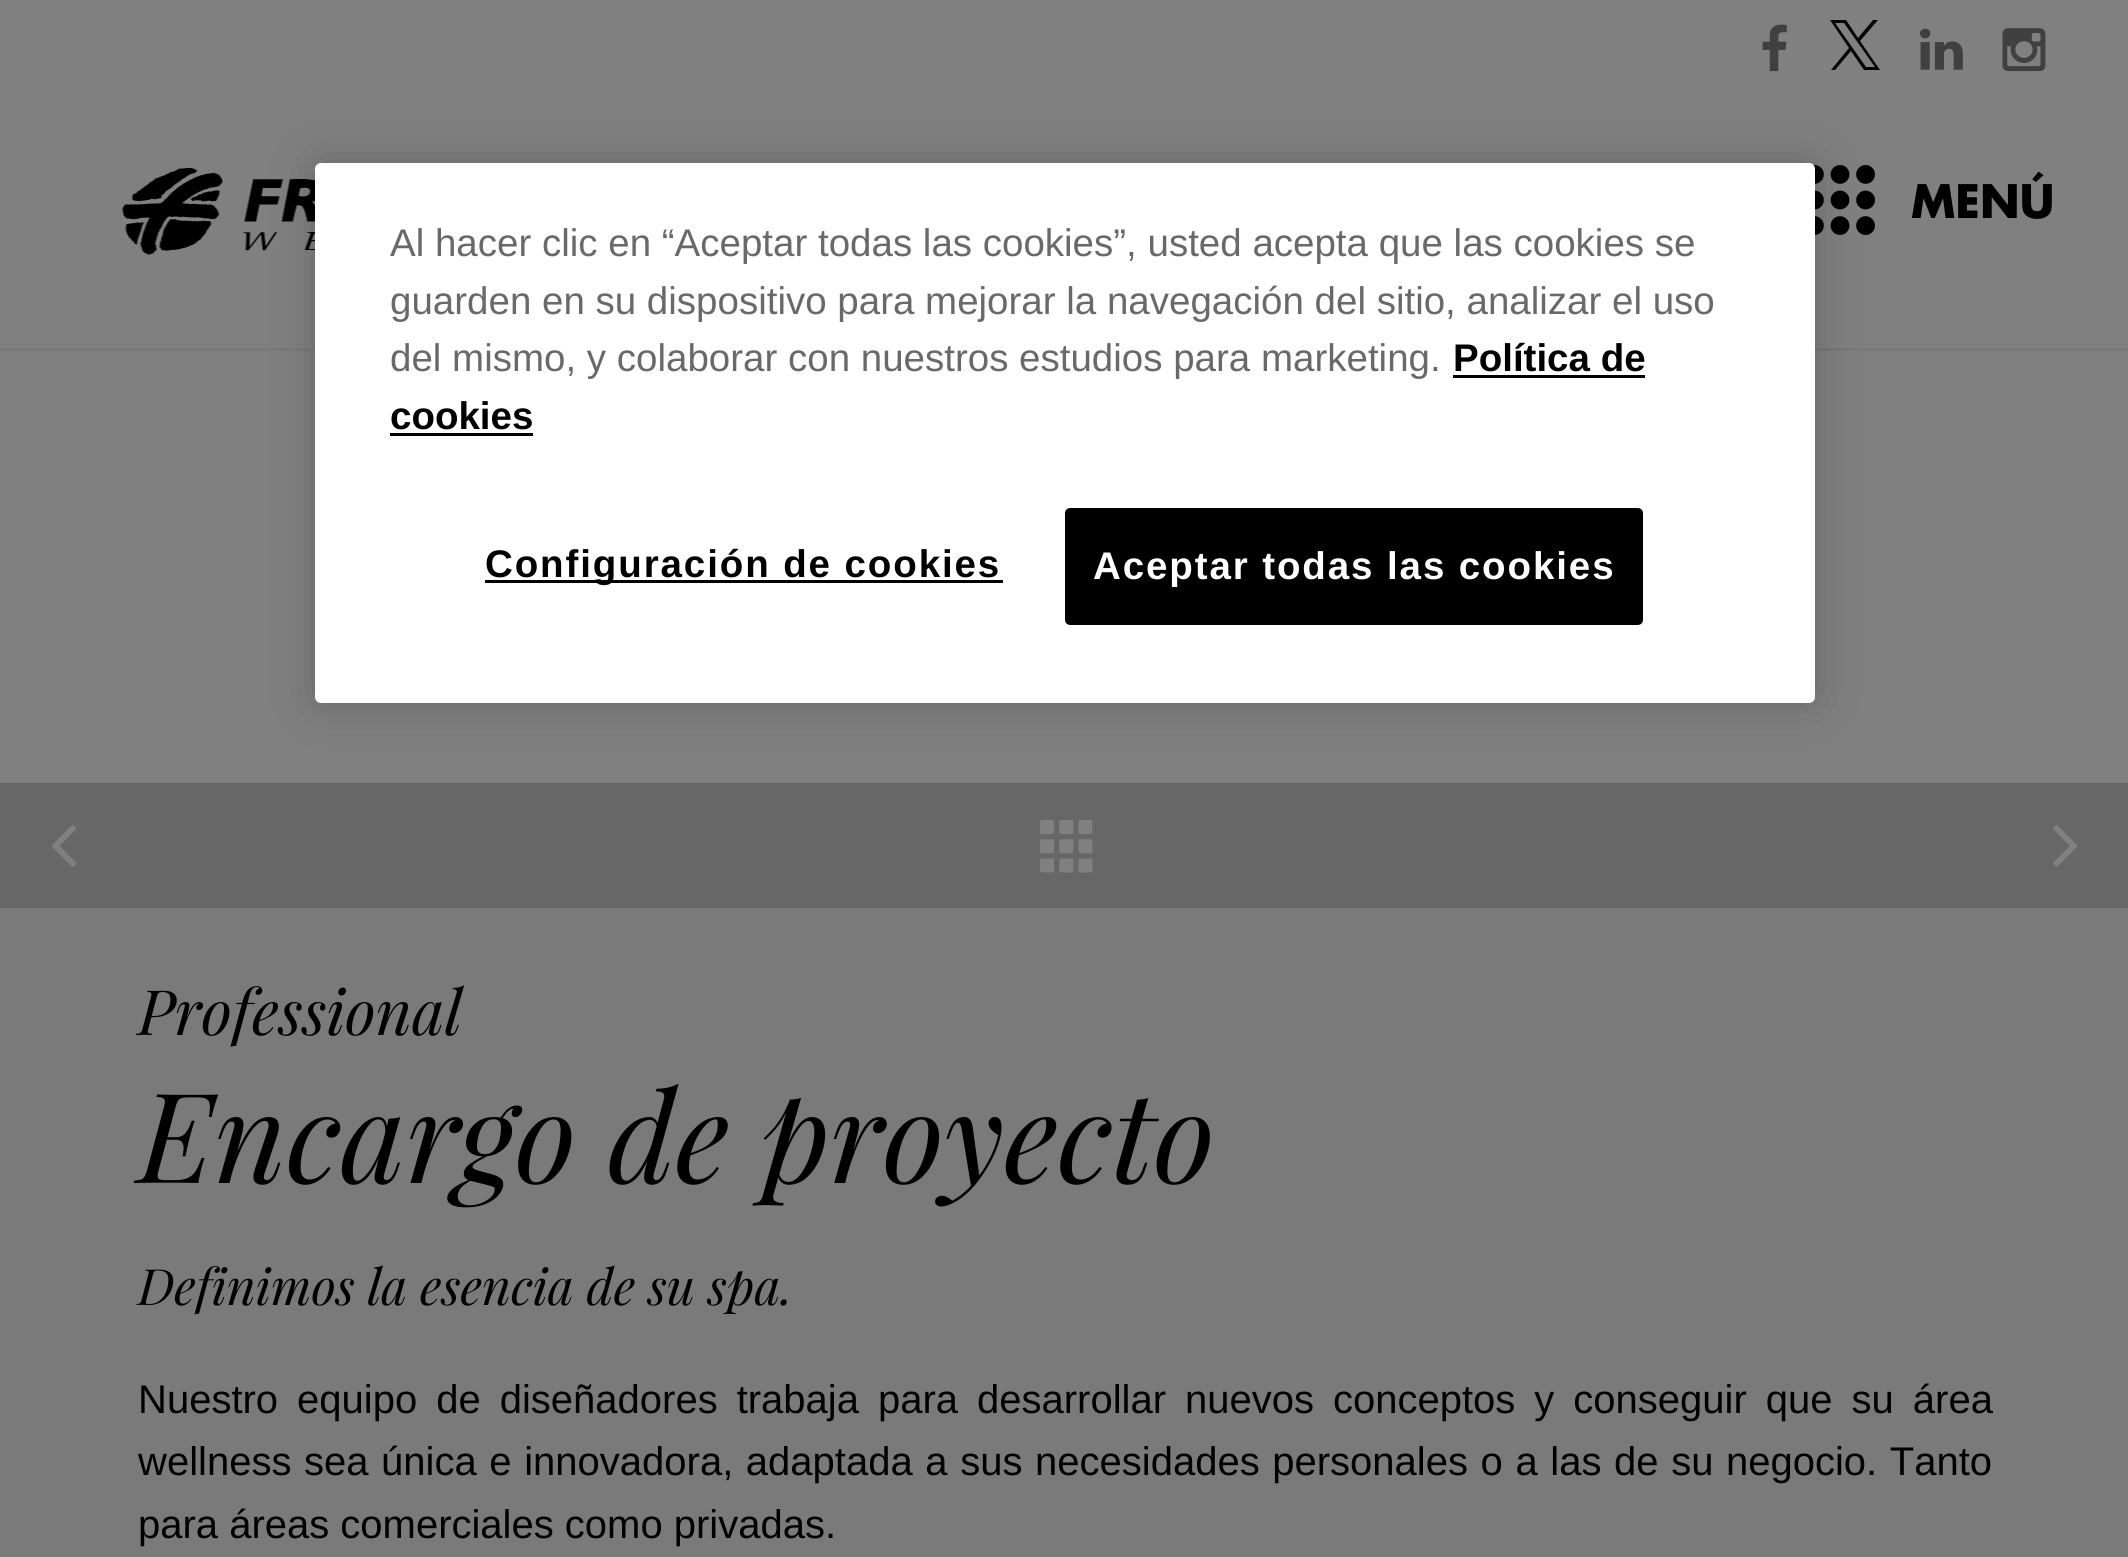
import math
import cairo

surface = cairo.ImageSurface(cairo.Format.RGB24, 2128, 1557)
ctx = cairo.Context(surface)
options = cairo.FontOptions()
options.set_hint_metrics(cairo.HintMetrics.OFF)
options.set_hint_style(cairo.HintStyle.NONE)
ctx.set_font_options(options)
ctx.set_miter_limit(4)


def ink(r, g, b):
    ctx.set_source_rgb(r / 255, g / 255, b / 255)


def write(x, y, s, family, size, color, bold=False, italic=False):
    ctx.select_font_face(family, cairo.FontSlant.ITALIC if italic else cairo.FontSlant.NORMAL, cairo.FontWeight.BOLD if bold else cairo.FontWeight.NORMAL)
    ctx.set_font_size(size)
    ink(*color)
    ctx.move_to(x, y)
    ctx.show_text(s)


def write_spaced(x, y, s, letter, word):
    ctx.move_to(x, y)
    for ch in s:
        ctx.show_text(ch)
        ctx.rel_move_to(letter + word * (ch == ' '), 0)


def block(x, y, w, h, *color):
    ink(*color)
    ctx.rectangle(x, y, w, h)
    ctx.fill()


def round_path(x, y, w, h, r):
    ctx.new_sub_path()
    for i, (u, v) in enumerate([(x + w - r, y + h - r), (x + r, y + h - r), (x + r, y + r), (x + w - r, y + r)]):
        ctx.arc(u, v, r, i * math.pi / 2, (i + 1) * math.pi / 2)
    ctx.close_path()


def blur_box(x, y, w, h, r, blur, alpha):
    ctx.push_group_with_content(cairo.Content.ALPHA)
    ctx.set_operator(cairo.Operator.SOURCE)
    for i in range(15, -16, -2):
        e = blur * i / 6
        if min(w, h) + 2 * e > 0:
            ctx.set_source_rgba(0, 0, 0, alpha * math.erfc((i - 1) / 8.5) / 2)
            round_path(x - e, y - e, w + 2 * e, h + 2 * e, max(0, min(r + e + blur * .6, min(w, h) / 2 + e)))
            ctx.fill()
    ctx.mask(ctx.pop_group())


def paste(path, x, y, w, h):
    ctx.save()
    ctx.set_source_surface(cairo.ImageSurface.create_from_png(path), x, y)
    ctx.rectangle(x, y, w, h)
    ctx.fill()
    ctx.restore()


s1 = dict(family="Futura", size=45, color=(0, 0, 0), bold=True)
s2 = dict(family="Liberation Sans", size=38.5, color=(105, 105, 105))
s3 = dict(family="Liberation Sans", size=38.5, color=(0, 0, 0), bold=True)
s4 = dict(family="Playfair Display", size=62.5, color=(0, 0, 0), italic=True)
s5 = dict(family="Playfair Display", size=125, color=(0, 0, 0), italic=True)
s6 = dict(family="Playfair Display", size=50, color=(0, 0, 0), italic=True)
s7 = dict(family="Liberation Sans", size=40, color=(0, 0, 0))

ink(128, 128, 128)
ctx.paint()
paste("pic1.png", 1762, 24, 25, 48)
ink(0, 0, 0)
ctx.set_fill_rule(cairo.FillRule.EVEN_ODD)
ctx.new_path()
ctx.move_to(1846, 20)
ctx.line_to(1858, 38)
ctx.line_to(1873, 20)
ctx.line_to(1878, 20)
ctx.line_to(1860, 41)
ctx.line_to(1880, 70)
ctx.line_to(1864, 70)
ctx.line_to(1851, 51)
ctx.line_to(1835, 70)
ctx.line_to(1831, 70)
ctx.line_to(1849, 48)
ctx.line_to(1830, 20)
ctx.close_path()
ctx.move_to(1866, 67)
ctx.line_to(1875, 67)
ctx.line_to(1844, 23)
ctx.line_to(1835, 23)
ctx.close_path()
ctx.fill()
paste("pic2.png", 1920, 28, 43, 42)
paste("pic3.png", 2002, 28, 44, 44)
block(0, 348, 2128, 3, 121, 121, 121)
paste("pic4.png", 122, 168, 193, 87)
paste("pic5.png", 1813, 165, 62, 70)
write(1911, 218, "MENÚ", **s1)
ink(0, 0, 0)
blur_box(315, 163, 1500, 540, 6, 22.5, 0.2)
ink(255, 255, 255)
round_path(315, 163, 1500, 540, 6)
ctx.fill()
write(390, 256, "Al hacer clic en “Aceptar todas las cookies”, usted acepta que las cookies se", **s2)
write(390, 314, "guarden en su dispositivo para mejorar la navegación del sitio, analizar el uso", **s2)
write(390, 371, "del mismo, y colaborar con nuestros estudios para marketing.", **s2)
write(1453, 371, "Política de", **s3)
block(1453, 375, 192, 3, 0, 0, 0)
write(390, 429, "cookies", **s3)
block(390, 433, 143, 3, 0, 0, 0)
block(485, 580, 518, 3, 0, 0, 0)
write_spaced(485, 577, "Configuración de cookies", 1.9, 0)
round_path(1066.5, 509.5, 575, 114, 3.5)
ctx.fill_preserve()
ctx.set_line_width(3)
ctx.stroke()
ink(255, 255, 255)
write_spaced(1093, 579, "Aceptar todas las cookies", 1.9, 0)
block(0, 783, 2128, 125, 103, 103, 103)
paste("pic6.png", 52, 825, 25, 42)
paste("pic7.png", 1040, 820, 53, 53)
paste("pic8.png", 2053, 825, 25, 42)
block(0, 908, 2128, 649, 122, 122, 122)
write(138, 1035, "Professional", **s4)
write(138, 1183, "Encargo de proyecto", **s5)
write(138, 1305, "Definimos la esencia de su spa.", **s6)
ctx.select_font_face("Liberation Sans")
ctx.set_font_size(40)
write_spaced(138, 1413, "Nuestro equipo de diseñadores trabaja para desarrollar nuevos conceptos y conseguir que su área", 0, 7.9)
write_spaced(138, 1475, "wellness sea única e innovadora, adaptada a sus necesidades personales o a las de su negocio. Tanto", 0, 1.5)
write(138, 1538, "para áreas comerciales como privadas.", **s7)
surface.write_to_png("screenshot.png")
